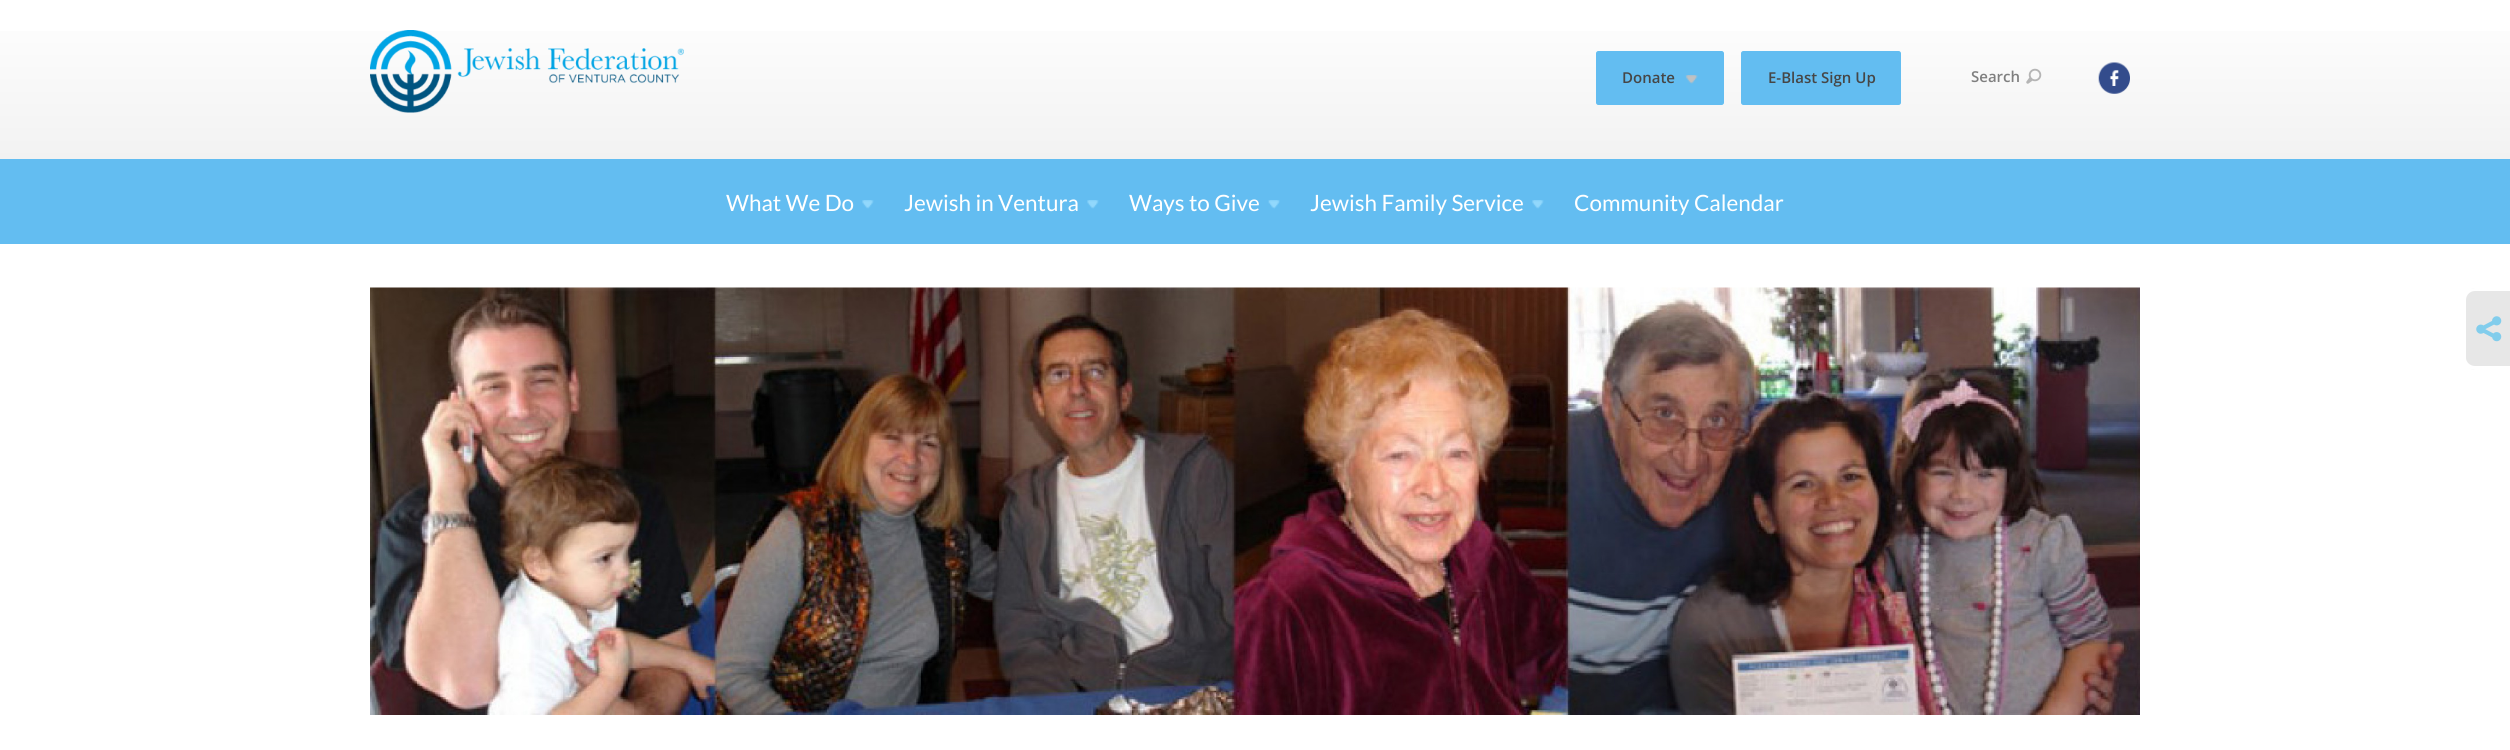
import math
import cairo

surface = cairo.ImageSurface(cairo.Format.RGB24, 2510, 750)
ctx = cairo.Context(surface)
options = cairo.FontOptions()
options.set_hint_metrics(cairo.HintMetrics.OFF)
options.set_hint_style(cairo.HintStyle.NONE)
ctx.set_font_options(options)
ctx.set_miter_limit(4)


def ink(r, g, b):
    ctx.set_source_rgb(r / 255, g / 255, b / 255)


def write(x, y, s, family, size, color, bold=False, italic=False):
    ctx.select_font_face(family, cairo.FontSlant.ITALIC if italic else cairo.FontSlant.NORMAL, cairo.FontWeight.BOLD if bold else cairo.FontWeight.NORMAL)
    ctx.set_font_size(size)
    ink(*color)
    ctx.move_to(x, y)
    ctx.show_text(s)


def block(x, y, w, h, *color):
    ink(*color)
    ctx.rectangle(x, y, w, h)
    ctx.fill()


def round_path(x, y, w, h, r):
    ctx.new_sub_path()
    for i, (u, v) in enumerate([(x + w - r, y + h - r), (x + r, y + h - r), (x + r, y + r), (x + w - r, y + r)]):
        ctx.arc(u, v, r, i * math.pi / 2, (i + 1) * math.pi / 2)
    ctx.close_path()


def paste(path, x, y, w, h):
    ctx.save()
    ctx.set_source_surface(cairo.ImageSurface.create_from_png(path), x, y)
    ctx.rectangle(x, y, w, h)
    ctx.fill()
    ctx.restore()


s1 = dict(family="Open Sans SemiBold", size=15, color=(70, 70, 70))
s2 = dict(family="Open Sans SemiBold", size=15, color=(127, 127, 127))
s3 = dict(family="Lato", size=22.5, color=(255, 255, 255))

ink(255, 255, 255)
ctx.paint()
gradient = cairo.LinearGradient(1255, 0, 1255, 159)
gradient.add_color_stop_rgba(0, 1, 1, 1, 1)
gradient.add_color_stop_rgba(1, 0.949, 0.949, 0.949, 1)
ctx.set_source(gradient)
ctx.rectangle(0, 31, 2510, 128)
ctx.fill()
paste("pic1.png", 370, 30, 314, 83)
ink(99, 189, 241)
round_path(1596.5, 51.5, 127, 53, 2)
ctx.fill_preserve()
ctx.set_line_width(1)
ctx.stroke()
write(1622, 83, "Donate", **s1)
paste("pic2.png", 1685, 75, 13, 9)
ink(99, 189, 241)
round_path(1741.5, 51.5, 159, 53, 2)
ctx.fill_preserve()
ctx.stroke()
write(1768, 83, "E-Blast Sign Up", **s1)
write(1971, 82, "Search", **s2)
paste("pic3.png", 2026, 68, 16, 16)
paste("pic4.png", 2098, 62, 32, 32)
block(0, 159, 2510, 85, 99, 189, 241)
write(726, 211, "What We Do", **s3)
paste("pic5.png", 862, 200, 12, 9)
write(904, 211, "Jewish in Ventura", **s3)
paste("pic5.png", 1087, 200, 12, 9)
write(1129, 211, "Ways to Give", **s3)
paste("pic6.png", 1268, 200, 12, 9)
write(1310, 211, "Jewish Family Service", **s3)
paste("pic5.png", 1532, 200, 12, 9)
write(1574, 211, "Community Calendar", **s3)
paste("pic7.png", 370, 287, 1770, 428)
ink(231, 231, 231)
ctx.new_path()
ctx.move_to(2476, 288)
ctx.line_to(2510, 288)
ctx.line_to(2510, 370)
ctx.line_to(2476, 370)
ctx.curve_to(2469, 370, 2463, 364, 2463, 357)
ctx.line_to(2463, 301)
ctx.curve_to(2463, 294, 2469, 288, 2476, 288)
ctx.close_path()
ctx.fill()
ink(255, 255, 255)
ctx.set_fill_rule(cairo.FillRule.EVEN_ODD)
ctx.new_path()
ctx.move_to(2475, 288)
ctx.line_to(2510, 288)
ctx.line_to(2510, 370)
ctx.line_to(2475, 370)
ctx.curve_to(2468, 370, 2462, 364, 2462, 358)
ctx.line_to(2462, 300)
ctx.curve_to(2462, 293, 2468, 288, 2475, 288)
ctx.close_path()
ctx.move_to(2475, 291)
ctx.line_to(2510, 291)
ctx.line_to(2510, 366)
ctx.line_to(2475, 366)
ctx.curve_to(2470, 366, 2466, 362, 2466, 358)
ctx.line_to(2466, 300)
ctx.curve_to(2466, 295, 2470, 291, 2475, 291)
ctx.close_path()
ctx.fill()
paste("pic8.png", 2476, 316, 26, 26)
surface.write_to_png("screenshot.png")
